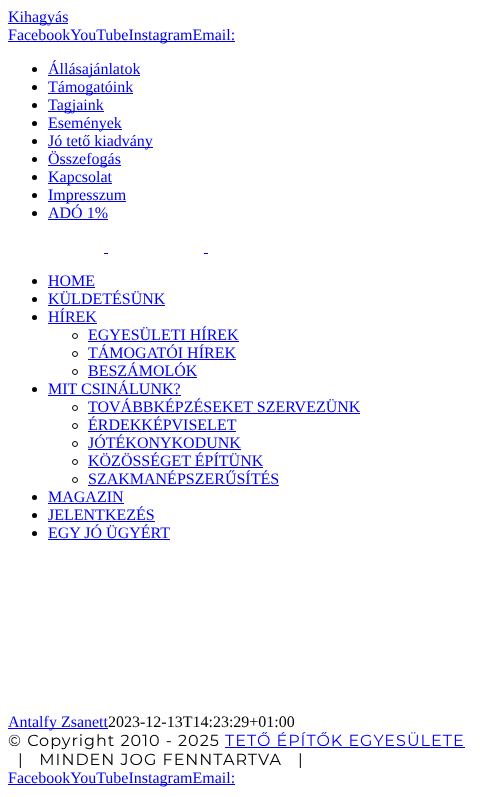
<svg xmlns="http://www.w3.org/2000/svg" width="480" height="797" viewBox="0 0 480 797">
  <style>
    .t1 { font: 16px Liberation Serif; fill: #00e; }
    .t2 { font: 16px Liberation Serif; fill: #000; }
    .t3 { font: 16px Montserrat; letter-spacing: 1px; fill: #000; }
    .t4 { font: 16px Montserrat; letter-spacing: 1px; fill: #00e; }
  </style>
  <rect width="100%" height="100%" fill="#fff"/>
  <rect x="8" y="23" width="60" height="1" fill="#00e"/>
  <text x="8" y="22" class="t1">Kihagyás</text>
  <rect x="8" y="41" width="184" height="1" fill="#00e"/>
  <text x="8" y="40" class="t1">FacebookYouTubeInstagramEmail:</text>
  <rect x="192" y="41" width="43" height="1" fill="#00e"/>
  <circle cx="34.5" cy="69.5" r="2.5" fill="#000"/>
  <rect x="48" y="75" width="92" height="1" fill="#00e"/>
  <text x="48" y="74" class="t1">Állásajánlatok</text>
  <circle cx="34.5" cy="87.5" r="2.5" fill="#000"/>
  <rect x="48" y="93" width="85" height="1" fill="#00e"/>
  <text x="48" y="92" class="t1">Támogatóink</text>
  <circle cx="34.5" cy="105.5" r="2.5" fill="#000"/>
  <rect x="48" y="111" width="56" height="1" fill="#00e"/>
  <text x="48" y="110" class="t1">Tagjaink</text>
  <circle cx="34.5" cy="123.5" r="2.5" fill="#000"/>
  <rect x="48" y="129" width="74" height="1" fill="#00e"/>
  <text x="48" y="128" class="t1">Események</text>
  <circle cx="34.5" cy="141.5" r="2.5" fill="#000"/>
  <rect x="48" y="147" width="105" height="1" fill="#00e"/>
  <text x="48" y="146" class="t1">Jó tető kiadvány</text>
  <circle cx="34.5" cy="159.5" r="2.5" fill="#000"/>
  <rect x="48" y="165" width="73" height="1" fill="#00e"/>
  <text x="48" y="164" class="t1">Összefogás</text>
  <circle cx="34.5" cy="177.5" r="2.5" fill="#000"/>
  <rect x="48" y="183" width="64" height="1" fill="#00e"/>
  <text x="48" y="182" class="t1">Kapcsolat</text>
  <circle cx="34.5" cy="195.5" r="2.5" fill="#000"/>
  <rect x="48" y="201" width="78" height="1" fill="#00e"/>
  <text x="48" y="200" class="t1">Impresszum</text>
  <circle cx="34.5" cy="213.5" r="2.5" fill="#000"/>
  <text x="48" y="218" class="t1">ADÓ 1%</text>
  <rect x="48" y="219" width="60" height="1" fill="#00e"/>
  <rect x="104" y="253" width="4" height="1" fill="#00e"/>
  <rect x="204" y="253" width="4" height="1" fill="#00e"/>
  <circle cx="34.5" cy="281.5" r="2.5" fill="#000"/>
  <text x="48" y="286" class="t1">HOME</text>
  <rect x="48" y="287" width="47" height="1" fill="#00e"/>
  <circle cx="34.5" cy="299.5" r="2.5" fill="#000"/>
  <text x="48" y="304" class="t1">KÜLDETÉSÜNK</text>
  <rect x="48" y="305" width="117" height="1" fill="#00e"/>
  <circle cx="34.5" cy="317.5" r="2.5" fill="#000"/>
  <text x="48" y="322" class="t1">HÍREK</text>
  <rect x="48" y="323" width="49" height="1" fill="#00e"/>
  <circle cx="75" cy="336" r="2.5" fill="none" stroke="#000"/>
  <text x="88" y="340" class="t1">EGYESÜLETI HÍREK</text>
  <rect x="88" y="341" width="151" height="1" fill="#00e"/>
  <circle cx="75" cy="354" r="2.5" fill="none" stroke="#000"/>
  <text x="88" y="358" class="t1">TÁMOGATÓI HÍREK</text>
  <rect x="88" y="359" width="148" height="1" fill="#00e"/>
  <circle cx="75" cy="372" r="2.5" fill="none" stroke="#000"/>
  <text x="88" y="376" class="t1">BESZÁMOLÓK</text>
  <rect x="88" y="377" width="109" height="1" fill="#00e"/>
  <circle cx="34.5" cy="389.5" r="2.5" fill="#000"/>
  <text x="48" y="394" class="t1">MIT CSINÁLUNK?</text>
  <rect x="48" y="395" width="133" height="1" fill="#00e"/>
  <circle cx="75" cy="408" r="2.5" fill="none" stroke="#000"/>
  <text x="88" y="412" class="t1">TOVÁBBKÉPZÉSEKET SZERVEZÜNK</text>
  <rect x="88" y="413" width="272" height="1" fill="#00e"/>
  <circle cx="75" cy="426" r="2.5" fill="none" stroke="#000"/>
  <text x="88" y="430" class="t1">ÉRDEKKÉPVISELET</text>
  <rect x="88" y="431" width="148" height="1" fill="#00e"/>
  <circle cx="75" cy="444" r="2.5" fill="none" stroke="#000"/>
  <text x="88" y="448" class="t1">JÓTÉKONYKODUNK</text>
  <rect x="88" y="449" width="153" height="1" fill="#00e"/>
  <circle cx="75" cy="462" r="2.5" fill="none" stroke="#000"/>
  <text x="88" y="466" class="t1">KÖZÖSSÉGET ÉPÍTÜNK</text>
  <rect x="88" y="467" width="175" height="1" fill="#00e"/>
  <circle cx="75" cy="480" r="2.5" fill="none" stroke="#000"/>
  <text x="88" y="484" class="t1">SZAKMANÉPSZERŰSÍTÉS</text>
  <rect x="88" y="485" width="191" height="1" fill="#00e"/>
  <circle cx="34.5" cy="497.5" r="2.5" fill="#000"/>
  <text x="48" y="502" class="t1">MAGAZIN</text>
  <rect x="48" y="503" width="76" height="1" fill="#00e"/>
  <circle cx="34.5" cy="515.5" r="2.5" fill="#000"/>
  <text x="48" y="520" class="t1">JELENTKEZÉS</text>
  <rect x="48" y="521" width="107" height="1" fill="#00e"/>
  <circle cx="34.5" cy="533.5" r="2.5" fill="#000"/>
  <text x="48" y="538" class="t1">EGY JÓ ÜGYÉRT</text>
  <rect x="48" y="539" width="122" height="1" fill="#00e"/>
  <rect x="8" y="728" width="100" height="1" fill="#00e"/>
  <text x="8" y="727" class="t1">Antalfy Zsanett</text>
  <text x="108" y="727" class="t2">2023-12-13T14:23:29+01:00</text>
  <text x="8" y="746" class="t3">© Copyright 2010 - 2025</text>
  <rect x="225" y="747" width="240" height="1" fill="#00e"/>
  <text x="225" y="746" class="t4">TETŐ ÉPÍTŐK EGYESÜLETE</text>
  <text x="18" y="765" class="t3" xml:space="preserve">|   MINDEN JOG FENNTARTVA</text>
  <text x="298" y="765" class="t3">|</text>
  <rect x="8" y="784" width="184" height="1" fill="#00e"/>
  <text x="8" y="783" class="t1">FacebookYouTubeInstagramEmail:</text>
  <rect x="192" y="784" width="43" height="1" fill="#00e"/>
</svg>
